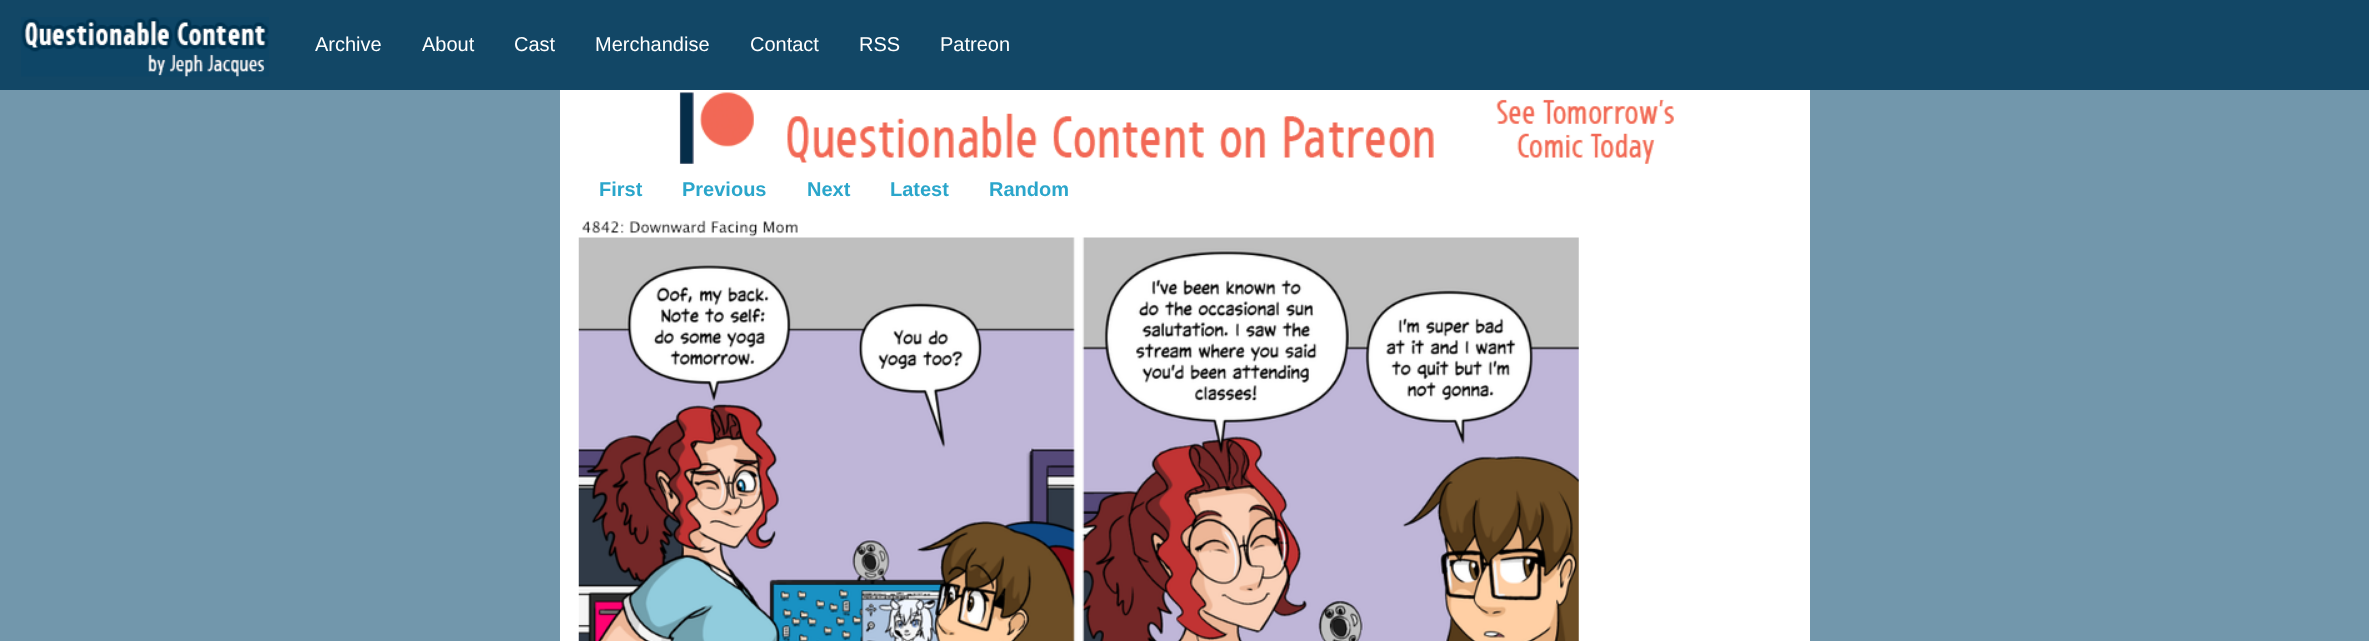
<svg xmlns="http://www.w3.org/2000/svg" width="2369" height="641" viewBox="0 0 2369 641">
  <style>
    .t1 { font: 20px Liberation Sans; fill: #fff; }
    .t2 { font: bold 20px Liberation Sans; fill: #2ba6cb; }
  </style>
  <rect width="100%" height="100%" fill="#7297ac"/>
  <rect x="0" y="0" width="2369" height="90" fill="#124766"/>
  <image x="21" y="17" width="248" height="60" href="images/1.png"/>
  <text x="315" y="51" class="t1">Archive</text>
  <text x="422" y="51" class="t1">About</text>
  <text x="514" y="51" class="t1">Cast</text>
  <text x="595" y="51" class="t1">Merchandise</text>
  <text x="750" y="51" class="t1">Contact</text>
  <text x="859" y="51" class="t1">RSS</text>
  <text x="940" y="51" class="t1">Patreon</text>
  <rect x="560" y="90" width="1250" height="551" fill="#fff"/>
  <image x="679" y="92" width="995" height="72" href="images/2.png"/>
  <text x="599" y="196" class="t2">First</text>
  <text x="682" y="196" class="t2">Previous</text>
  <text x="807" y="196" class="t2">Next</text>
  <text x="890" y="196" class="t2">Latest</text>
  <text x="989" y="196" class="t2">Random</text>
  <image x="578" y="220" width="1001" height="421" href="images/3.png"/>
</svg>
